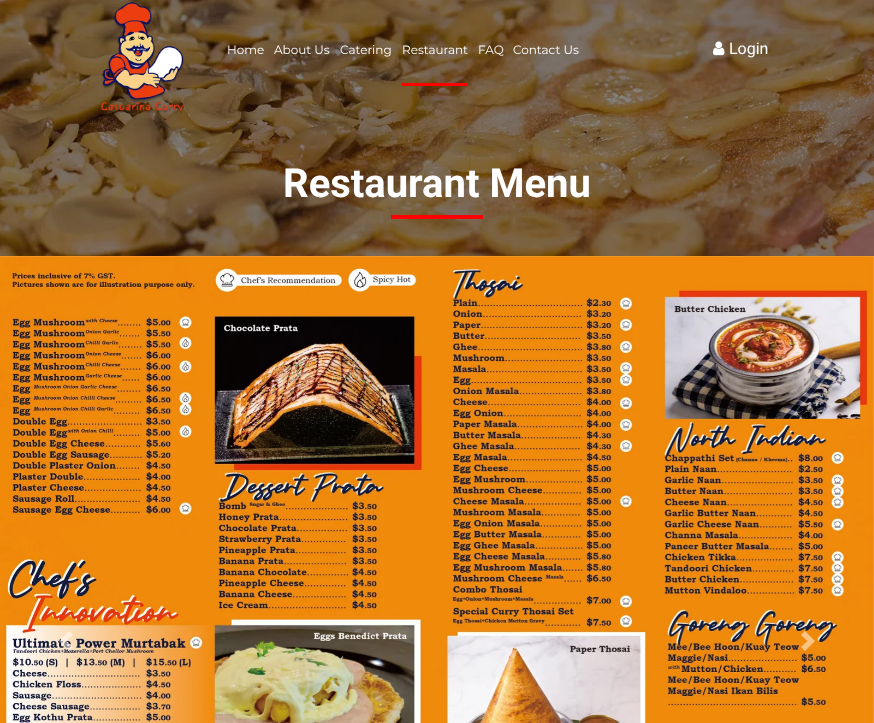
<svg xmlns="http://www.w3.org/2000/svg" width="874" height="723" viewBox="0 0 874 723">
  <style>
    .t1 { font: 12px Montserrat; fill: #fff; }
    .t2 { font: 16px Roboto; fill: #fff; }
    .t3 { font: bold 40px Roboto; fill: #fff; }
  </style>
  <rect width="100%" height="100%" fill="#fff"/>
  <image x="0" y="0" width="874" height="256" href="images/3.png"/>
  <image x="101" y="2" width="83" height="112" href="images/1.png"/>
  <text x="227" y="54" class="t1">Home</text>
  <text x="274" y="54" class="t1">About Us</text>
  <text x="340" y="54" class="t1">Catering</text>
  <text x="402" y="54" class="t1">Restaurant</text>
  <rect x="402" y="83" width="66" height="3" fill="#fe0000"/>
  <text x="478" y="54" class="t1">FAQ</text>
  <text x="513" y="54" class="t1">Contact Us</text>
  <image x="713" y="41" width="12" height="15" href="images/2.png"/>
  <text x="729" y="54" class="t2">Login</text>
  <text x="283" y="197" class="t3">Restaurant Menu</text>
  <rect x="391" y="215" width="92" height="4" fill="#fe0000"/>
  <image x="0" y="256" width="874" height="467" href="images/4.png"/>
  <path d="M69 631L59 641L69 651L73 647L66.5 641L73 635Z" fill="#ffffff80"/>
  <path d="M805 631L801 635L807.5 641L801 647L805 651L815 641Z" fill="#ffffff80"/>
</svg>
